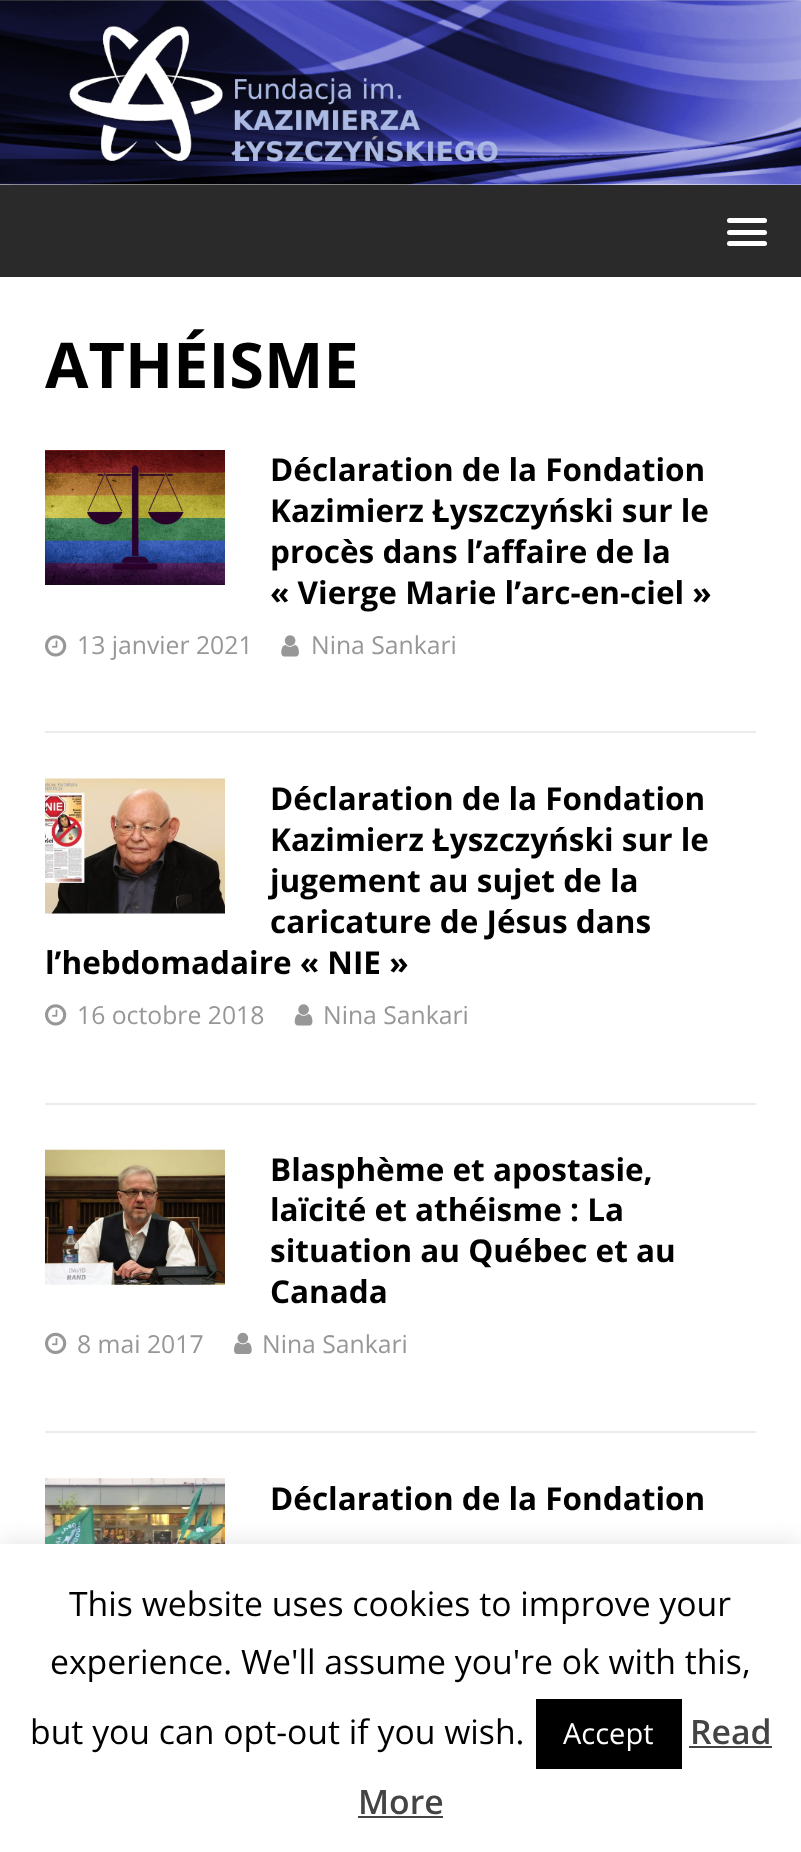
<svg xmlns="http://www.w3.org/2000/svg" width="801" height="1852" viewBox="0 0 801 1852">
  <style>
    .t1 { font: bold 63px Open Sans; fill: #000; }
    .t2 { font: bold 31.5px Open Sans; fill: #000; }
    .t3 { font: 24.75px Open Sans; fill: #979797; }
    .t4 { font: 33.75px Open Sans; fill: #000; }
    .t5 { font: 29px Open Sans; fill: #fff; }
    .t6 { font: 600 33.75px Open Sans; fill: #444; }
  </style>
  <rect width="100%" height="100%" fill="#fff"/>
  <image x="0" y="0" width="801" height="185" href="images/1.png"/>
  <rect x="0" y="185" width="801" height="92" fill="#2a2a2a"/>
  <rect x="727" y="218" width="40" height="5" rx="2.5" fill="#fff"/>
  <rect x="727" y="230" width="40" height="5" rx="2.5" fill="#fff"/>
  <rect x="727" y="241" width="40" height="5" rx="2.5" fill="#fff"/>
  <text x="45" y="388" class="t1">ATHÉISME</text>
  <rect x="45" y="731" width="711" height="2" fill="#ebebeb"/>
  <image x="45" y="450" width="180" height="135" href="images/2.png"/>
  <text x="270" y="481" class="t2">Déclaration de la Fondation</text>
  <text x="270" y="522" class="t2">Kazimierz Łyszczyński sur le</text>
  <text x="270" y="563" class="t2">procès dans l’affaire de la</text>
  <text x="270" y="604" class="t2">« Vierge Marie l’arc-en-ciel »</text>
  <image x="45" y="635" width="22" height="22" href="images/3.png"/>
  <text x="77" y="654" class="t3">13 janvier 2021</text>
  <image x="281" y="635" width="18" height="22" href="images/4.png"/>
  <text x="311" y="654" class="t3">Nina Sankari</text>
  <rect x="45" y="1103" width="711" height="2" fill="#ebebeb"/>
  <image x="45" y="778" width="180" height="136" href="images/5.png"/>
  <text x="270" y="810" class="t2">Déclaration de la Fondation</text>
  <text x="270" y="851" class="t2">Kazimierz Łyszczyński sur le</text>
  <text x="270" y="892" class="t2">jugement au sujet de la</text>
  <text x="270" y="933" class="t2">caricature de Jésus dans</text>
  <text x="45" y="974" class="t2">l’hebdomadaire « NIE »</text>
  <image x="45" y="1004" width="22" height="22" href="images/3.png"/>
  <text x="77" y="1024" class="t3">16 octobre 2018</text>
  <image x="294" y="1004" width="19" height="22" href="images/6.png"/>
  <text x="323" y="1024" class="t3">Nina Sankari</text>
  <rect x="45" y="1431" width="711" height="2" fill="#ebebeb"/>
  <image x="45" y="1149" width="180" height="136" href="images/7.png"/>
  <text x="270" y="1181" class="t2">Blasphème et apostasie,</text>
  <text x="270" y="1221" class="t2">laïcité et athéisme : La</text>
  <text x="270" y="1262" class="t2">situation au Québec et au</text>
  <text x="270" y="1303" class="t2">Canada</text>
  <image x="45" y="1332" width="22" height="22" href="images/8.png"/>
  <text x="77" y="1353" class="t3">8 mai 2017</text>
  <image x="234" y="1332" width="18" height="22" href="images/9.png"/>
  <text x="262" y="1353" class="t3">Nina Sankari</text>
  <image x="45" y="1478" width="180" height="66" href="images/10.png"/>
  <text x="270" y="1510" class="t2">Déclaration de la Fondation</text>
  <rect x="0" y="1541" width="801" height="311" fill="#acabab4d" filter="blur(11px)"/>
  <rect x="0" y="1544" width="801" height="308" fill="#fff"/>
  <text x="69" y="1616" class="t4">This website uses cookies to improve your</text>
  <text x="50" y="1674" class="t4">experience. We'll assume you're ok with this,</text>
  <text x="30" y="1744" class="t4">but you can opt-out if you wish.</text>
  <rect x="536" y="1699" width="146" height="70" fill="#000"/>
  <text x="563" y="1744" class="t5">Accept</text>
  <text x="690" y="1744" class="t6">Read</text>
  <rect x="689" y="1746" width="83" height="2" fill="#444"/>
  <text x="358" y="1814" class="t6">More</text>
  <rect x="358" y="1816" width="85" height="2" fill="#444"/>
</svg>
